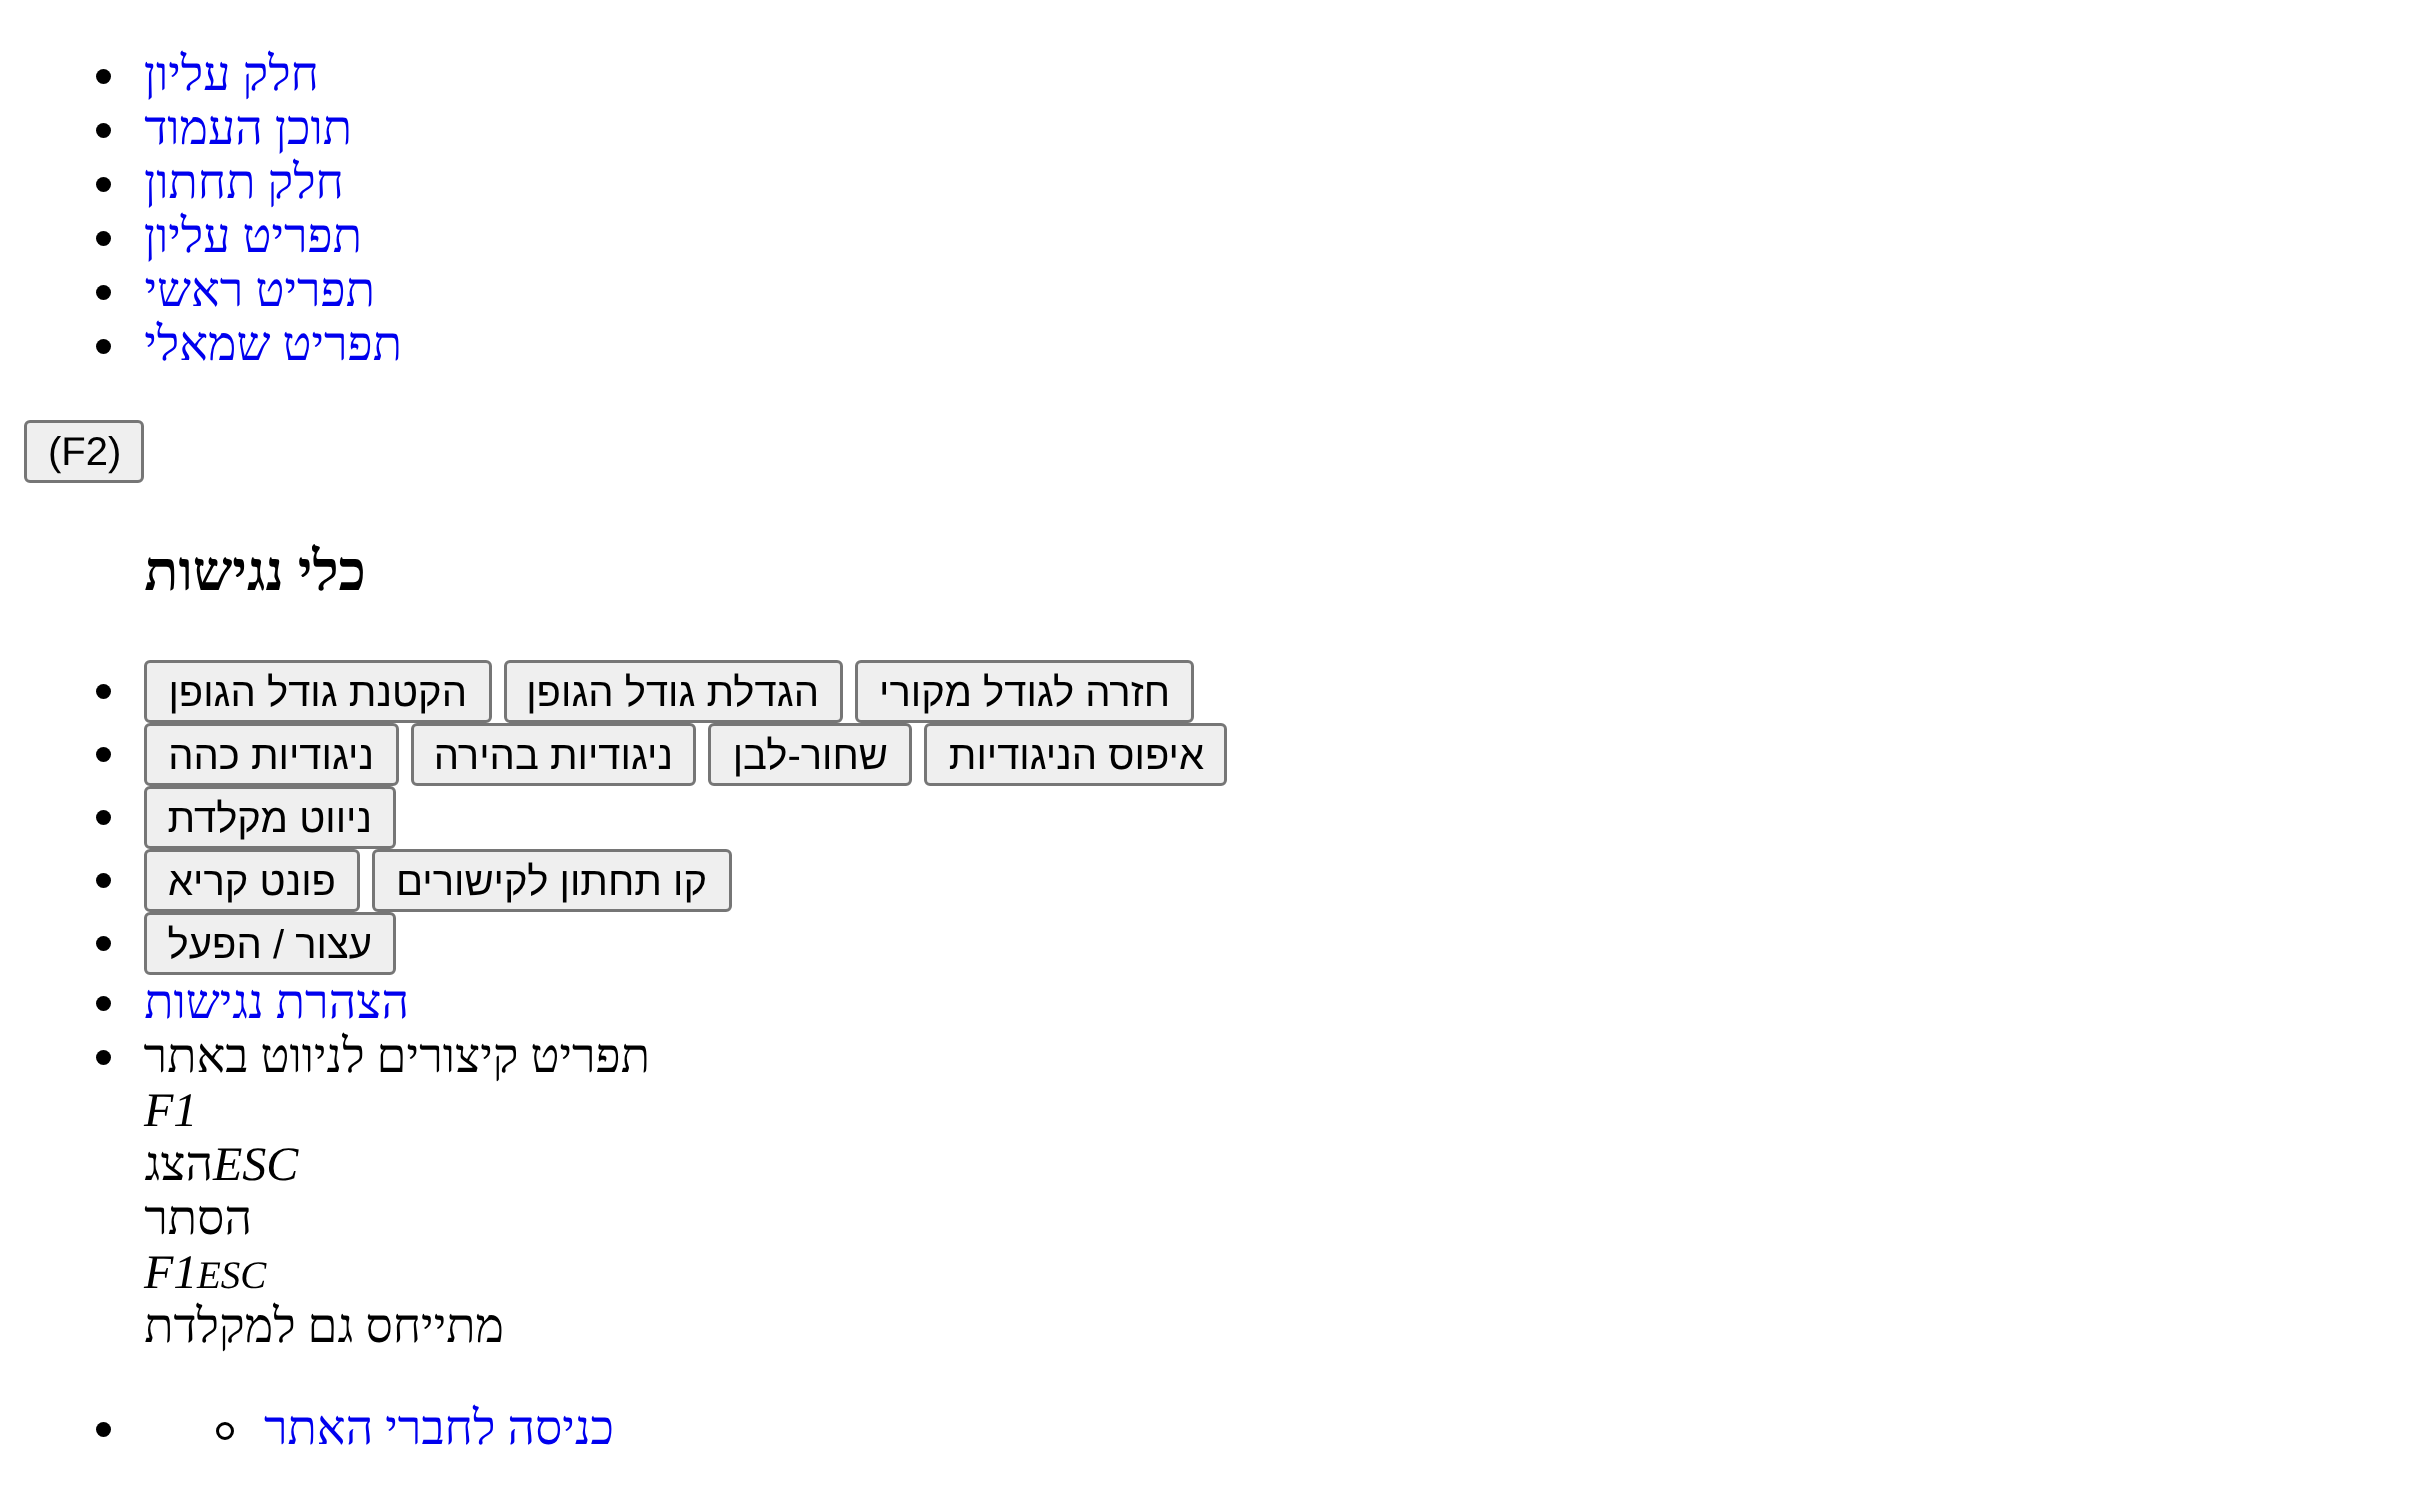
<svg xmlns="http://www.w3.org/2000/svg" width="2425" height="1508" viewBox="0 0 2425 1508">
  <style>
    .t1 { font: 48px Liberation Serif; direction: rtl; fill: #00e; }
    .t2 { font: 40px Liberation Sans; fill: #000; }
    .t3 { font: bold 56px Liberation Serif; direction: rtl; fill: #000; }
    .t4 { font: 40px Liberation Sans; direction: rtl; fill: #000; }
    .t5 { font: 48px Liberation Serif; direction: rtl; fill: #000; }
    .t6 { font: italic 48px Liberation Serif; fill: #000; }
    .t7 { font: italic 39px Liberation Serif; fill: #000; }
  </style>
  <rect width="100%" height="100%" fill="#fff"/>
  <text x="319" y="90" class="t1">חלק עליון</text>
  <circle cx="103.5" cy="76.5" r="7.5" fill="#000"/>
  <text x="352" y="144" class="t1">תוכן העמוד</text>
  <circle cx="103.5" cy="130.5" r="7.5" fill="#000"/>
  <text x="344" y="198" class="t1">חלק תחתון</text>
  <circle cx="103.5" cy="184.5" r="7.5" fill="#000"/>
  <text x="362" y="252" class="t1">תפריט עליון</text>
  <circle cx="103.5" cy="238.5" r="7.5" fill="#000"/>
  <text x="375" y="306" class="t1">תפריט ראשי</text>
  <circle cx="103.5" cy="292.5" r="7.5" fill="#000"/>
  <text x="402" y="360" class="t1">תפריט שמאלי</text>
  <circle cx="103.5" cy="346.5" r="7.5" fill="#000"/>
  <rect x="25.5" y="421.5" width="117" height="60" rx="4.5" fill="#efefef" stroke="#767676" stroke-width="3"/>
  <text x="48" y="465" class="t2">(F2)</text>
  <text x="366" y="590" class="t3">כלי נגישות</text>
  <rect x="856.5" y="661.5" width="336" height="60" rx="4.5" fill="#efefef" stroke="#767676" stroke-width="3"/>
  <text x="1170" y="706" class="t4">חזרה לגודל מקורי</text>
  <rect x="505.5" y="661.5" width="336" height="60" rx="4.5" fill="#efefef" stroke="#767676" stroke-width="3"/>
  <text x="819" y="706" class="t4">הגדלת גודל הגופן</text>
  <rect x="145.5" y="661.5" width="345" height="60" rx="4.5" fill="#efefef" stroke="#767676" stroke-width="3"/>
  <text x="467" y="706" class="t4">הקטנת גודל הגופן</text>
  <circle cx="103.5" cy="691.5" r="7.5" fill="#000"/>
  <rect x="925.5" y="724.5" width="300" height="60" rx="4.5" fill="#efefef" stroke="#767676" stroke-width="3"/>
  <text x="1204" y="769" class="t4">איפוס הניגודיות</text>
  <rect x="709.5" y="724.5" width="201" height="60" rx="4.5" fill="#efefef" stroke="#767676" stroke-width="3"/>
  <text x="888" y="769" class="t4">שחור-לבן</text>
  <rect x="412.5" y="724.5" width="282" height="60" rx="4.5" fill="#efefef" stroke="#767676" stroke-width="3"/>
  <text x="673" y="769" class="t4">ניגודיות בהירה</text>
  <rect x="145.5" y="724.5" width="252" height="60" rx="4.5" fill="#efefef" stroke="#767676" stroke-width="3"/>
  <text x="374" y="769" class="t4">ניגודיות כהה</text>
  <circle cx="103.5" cy="754.5" r="7.5" fill="#000"/>
  <rect x="145.5" y="787.5" width="249" height="60" rx="4.5" fill="#efefef" stroke="#767676" stroke-width="3"/>
  <text x="372" y="832" class="t4">ניווט מקלדת</text>
  <circle cx="103.5" cy="817.5" r="7.5" fill="#000"/>
  <rect x="373.5" y="850.5" width="357" height="60" rx="4.5" fill="#efefef" stroke="#767676" stroke-width="3"/>
  <text x="707" y="895" class="t4">קו תחתון לקישורים</text>
  <rect x="145.5" y="850.5" width="213" height="60" rx="4.5" fill="#efefef" stroke="#767676" stroke-width="3"/>
  <text x="336" y="895" class="t4">פונט קריא</text>
  <circle cx="103.5" cy="880.5" r="7.5" fill="#000"/>
  <rect x="145.5" y="913.5" width="249" height="60" rx="4.5" fill="#efefef" stroke="#767676" stroke-width="3"/>
  <text x="372" y="958" class="t4">עצור / הפעל</text>
  <circle cx="103.5" cy="943.5" r="7.5" fill="#000"/>
  <text x="409" y="1018" class="t1">הצהרת נגישות</text>
  <circle cx="103.5" cy="1003.5" r="7.5" fill="#000"/>
  <text x="650" y="1072" class="t5">תפריט קיצורים לניווט באתר</text>
  <circle cx="103.5" cy="1057.5" r="7.5" fill="#000"/>
  <text x="144" y="1126" class="t6">F1</text>
  <text x="213" y="1180" class="t6">ESC</text>
  <text x="213" y="1180" class="t5">הצג</text>
  <text x="252" y="1234" class="t5">הסתר</text>
  <text x="197" y="1288" class="t7">ESC</text>
  <text x="144" y="1288" class="t6">F1</text>
  <text x="504" y="1342" class="t5">מתייחס גם למקלדת</text>
  <text x="614" y="1444" class="t1">כניסה לחברי האתר</text>
  <circle cx="225" cy="1431" r="7.5" fill="none" stroke="#000" stroke-width="3"/>
  <circle cx="103.5" cy="1429.5" r="7.5" fill="#000"/>
</svg>
